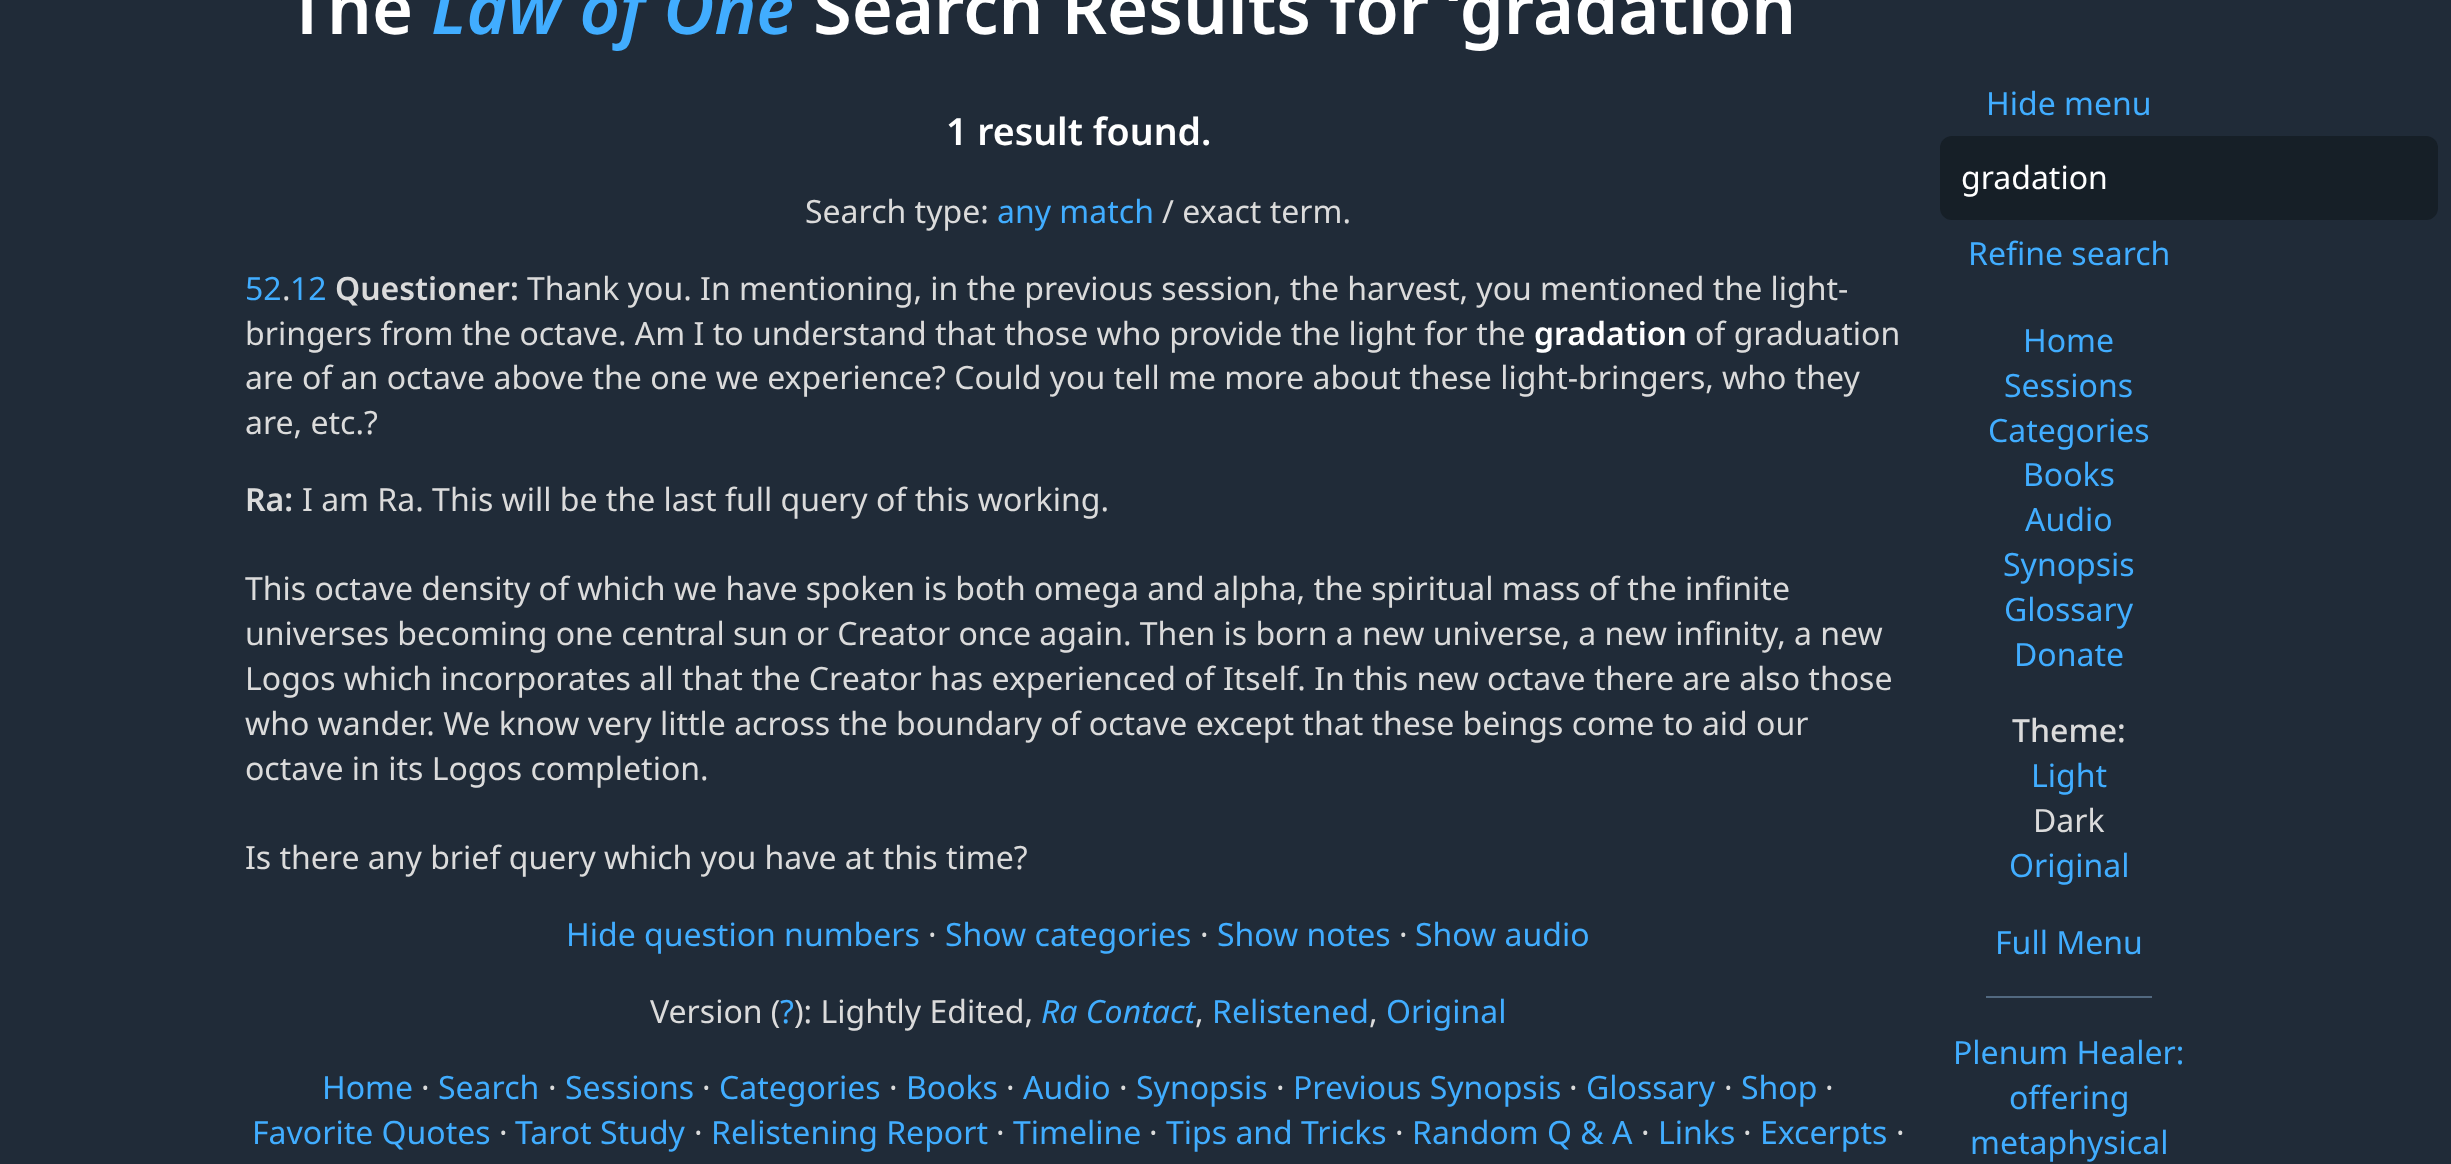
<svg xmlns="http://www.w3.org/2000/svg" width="2451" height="1164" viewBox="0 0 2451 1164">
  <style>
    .t1 { font: 600 70.4px Noto Sans; fill: #fff; }
    .t2 { font: italic 600 70.4px Noto Sans; fill: #41adff; }
    .t3 { font: 600 37.5px Noto Sans; fill: #fff; }
    .t4 { font: 32px Noto Sans; fill: #41adff; }
    .t5 { font: 32px Noto Sans; fill: #fff; }
    .t6 { font: 500 32px Noto Sans; fill: #dbdbdb; }
    .t7 { font: 32px Noto Sans; fill: #dbdbdb; }
    .t8 { font: 600 32px Noto Sans; fill: #dbdbdb; }
    .t9 { font: 600 32px Noto Sans; fill: #fff; }
    .t10 { font: italic 32px Noto Sans; fill: #41adff; }
  </style>
  <rect width="100%" height="100%" fill="#202b38"/>
  <text x="287" y="34" class="t1">The</text>
  <text x="431" y="34" class="t2">Law of One</text>
  <text x="813" y="34" class="t1">Search Results for ‘gradation</text>
  <text x="946" y="145" class="t3">1 result found.</text>
  <text x="1986" y="115" class="t4">Hide menu</text>
  <rect x="1940" y="136" width="498" height="84" rx="12" fill="#161f27"/>
  <text x="1961" y="189" class="t5">gradation</text>
  <text x="1968" y="265" class="t4">Refine search</text>
  <text x="2023" y="352" class="t4">Home</text>
  <text x="2004" y="397" class="t4">Sessions</text>
  <text x="1988" y="442" class="t4">Categories</text>
  <text x="2023" y="486" class="t4">Books</text>
  <text x="2025" y="531" class="t4">Audio</text>
  <text x="2003" y="576" class="t4">Synopsis</text>
  <text x="2004" y="621" class="t4">Glossary</text>
  <text x="2014" y="666" class="t4">Donate</text>
  <text x="2012" y="742" class="t6">Theme:</text>
  <text x="2031" y="787" class="t4">Light</text>
  <text x="2033" y="832" class="t7">Dark</text>
  <text x="2009" y="877" class="t4">Original</text>
  <text x="1995" y="954" class="t4">Full Menu</text>
  <rect x="1986" y="996" width="166" height="2" fill="#526980"/>
  <text x="1953" y="1064" class="t4">Plenum Healer:</text>
  <text x="2009" y="1109" class="t4">offering</text>
  <text x="1970" y="1154" class="t4">metaphysical</text>
  <text x="805" y="223" class="t7">Search type:</text>
  <text x="997" y="223" class="t4">any match</text>
  <text x="1162" y="223" class="t7">/ exact term.</text>
  <text x="245" y="300" class="t4">52 12</text>
  <text x="335" y="300" class="t8">Questioner:</text>
  <text x="527" y="300" class="t7">Thank you. In mentioning, in the previous session, the harvest, you mentioned the light-</text>
  <text x="282" y="300" class="t7">.</text>
  <text x="245" y="345" class="t7">bringers from the octave. Am I to understand that those who provide the light for the</text>
  <text x="1534" y="345" class="t9">gradation</text>
  <text x="1695" y="345" class="t7">of graduation</text>
  <text x="245" y="389" class="t7">are of an octave above the one we experience? Could you tell me more about these light-bringers, who they</text>
  <text x="245" y="434" class="t7">are, etc.?</text>
  <text x="245" y="511" class="t8">Ra:</text>
  <text x="302" y="511" class="t7">I am Ra. This will be the last full query of this working.</text>
  <text x="245" y="600" class="t7">This octave density of which we have spoken is both omega and alpha, the spiritual mass of the infinite</text>
  <text x="245" y="645" class="t7">universes becoming one central sun or Creator once again. Then is born a new universe, a new infinity, a new</text>
  <text x="245" y="690" class="t7">Logos which incorporates all that the Creator has experienced of Itself. In this new octave there are also those</text>
  <text x="245" y="735" class="t7">who wander. We know very little across the boundary of octave except that these beings come to aid our</text>
  <text x="245" y="780" class="t7">octave in its Logos completion.</text>
  <text x="245" y="869" class="t7">Is there any brief query which you have at this time?</text>
  <text x="566" y="946" class="t4">Hide question numbers</text>
  <text x="928" y="946" class="t7">·</text>
  <text x="945" y="946" class="t4">Show categories</text>
  <text x="1200" y="946" class="t7">·</text>
  <text x="1217" y="946" class="t4">Show notes</text>
  <text x="1399" y="946" class="t7">·</text>
  <text x="1415" y="946" class="t4">Show audio</text>
  <text x="650" y="1023" class="t7">Version (</text>
  <text x="780" y="1023" class="t4">?</text>
  <text x="794" y="1023" class="t7">): Lightly Edited,</text>
  <text x="1041" y="1023" class="t10">Ra Contact</text>
  <text x="1195" y="1023" class="t7">,</text>
  <text x="1212" y="1023" class="t4">Relistened</text>
  <text x="1369" y="1023" class="t7">,</text>
  <text x="1386" y="1023" class="t4">Original</text>
  <text x="322" y="1099" class="t4">Home</text>
  <text x="421" y="1099" class="t7">·</text>
  <text x="438" y="1099" class="t4">Search</text>
  <text x="548" y="1099" class="t7">·</text>
  <text x="565" y="1099" class="t4">Sessions</text>
  <text x="702" y="1099" class="t7">·</text>
  <text x="719" y="1099" class="t4">Categories</text>
  <text x="889" y="1099" class="t7">·</text>
  <text x="906" y="1099" class="t4">Books</text>
  <text x="1006" y="1099" class="t7">·</text>
  <text x="1023" y="1099" class="t4">Audio</text>
  <text x="1119" y="1099" class="t7">·</text>
  <text x="1136" y="1099" class="t4">Synopsis</text>
  <text x="1276" y="1099" class="t7">·</text>
  <text x="1293" y="1099" class="t4">Previous Synopsis</text>
  <text x="1569" y="1099" class="t7">·</text>
  <text x="1586" y="1099" class="t4">Glossary</text>
  <text x="1724" y="1099" class="t7">·</text>
  <text x="1741" y="1099" class="t4">Shop</text>
  <text x="1825" y="1099" class="t7">·</text>
  <text x="252" y="1144" class="t4">Favorite Quotes</text>
  <text x="499" y="1144" class="t7">·</text>
  <text x="515" y="1144" class="t4">Tarot Study</text>
  <text x="694" y="1144" class="t7">·</text>
  <text x="711" y="1144" class="t4">Relistening Report</text>
  <text x="996" y="1144" class="t7">·</text>
  <text x="1013" y="1144" class="t4">Timeline</text>
  <text x="1149" y="1144" class="t7">·</text>
  <text x="1166" y="1144" class="t4">Tips and Tricks</text>
  <text x="1395" y="1144" class="t7">·</text>
  <text x="1412" y="1144" class="t4">Random Q &amp; A</text>
  <text x="1641" y="1144" class="t7">·</text>
  <text x="1658" y="1144" class="t4">Links</text>
  <text x="1743" y="1144" class="t7">·</text>
  <text x="1760" y="1144" class="t4">Excerpts</text>
  <text x="1896" y="1144" class="t7">·</text>
</svg>
